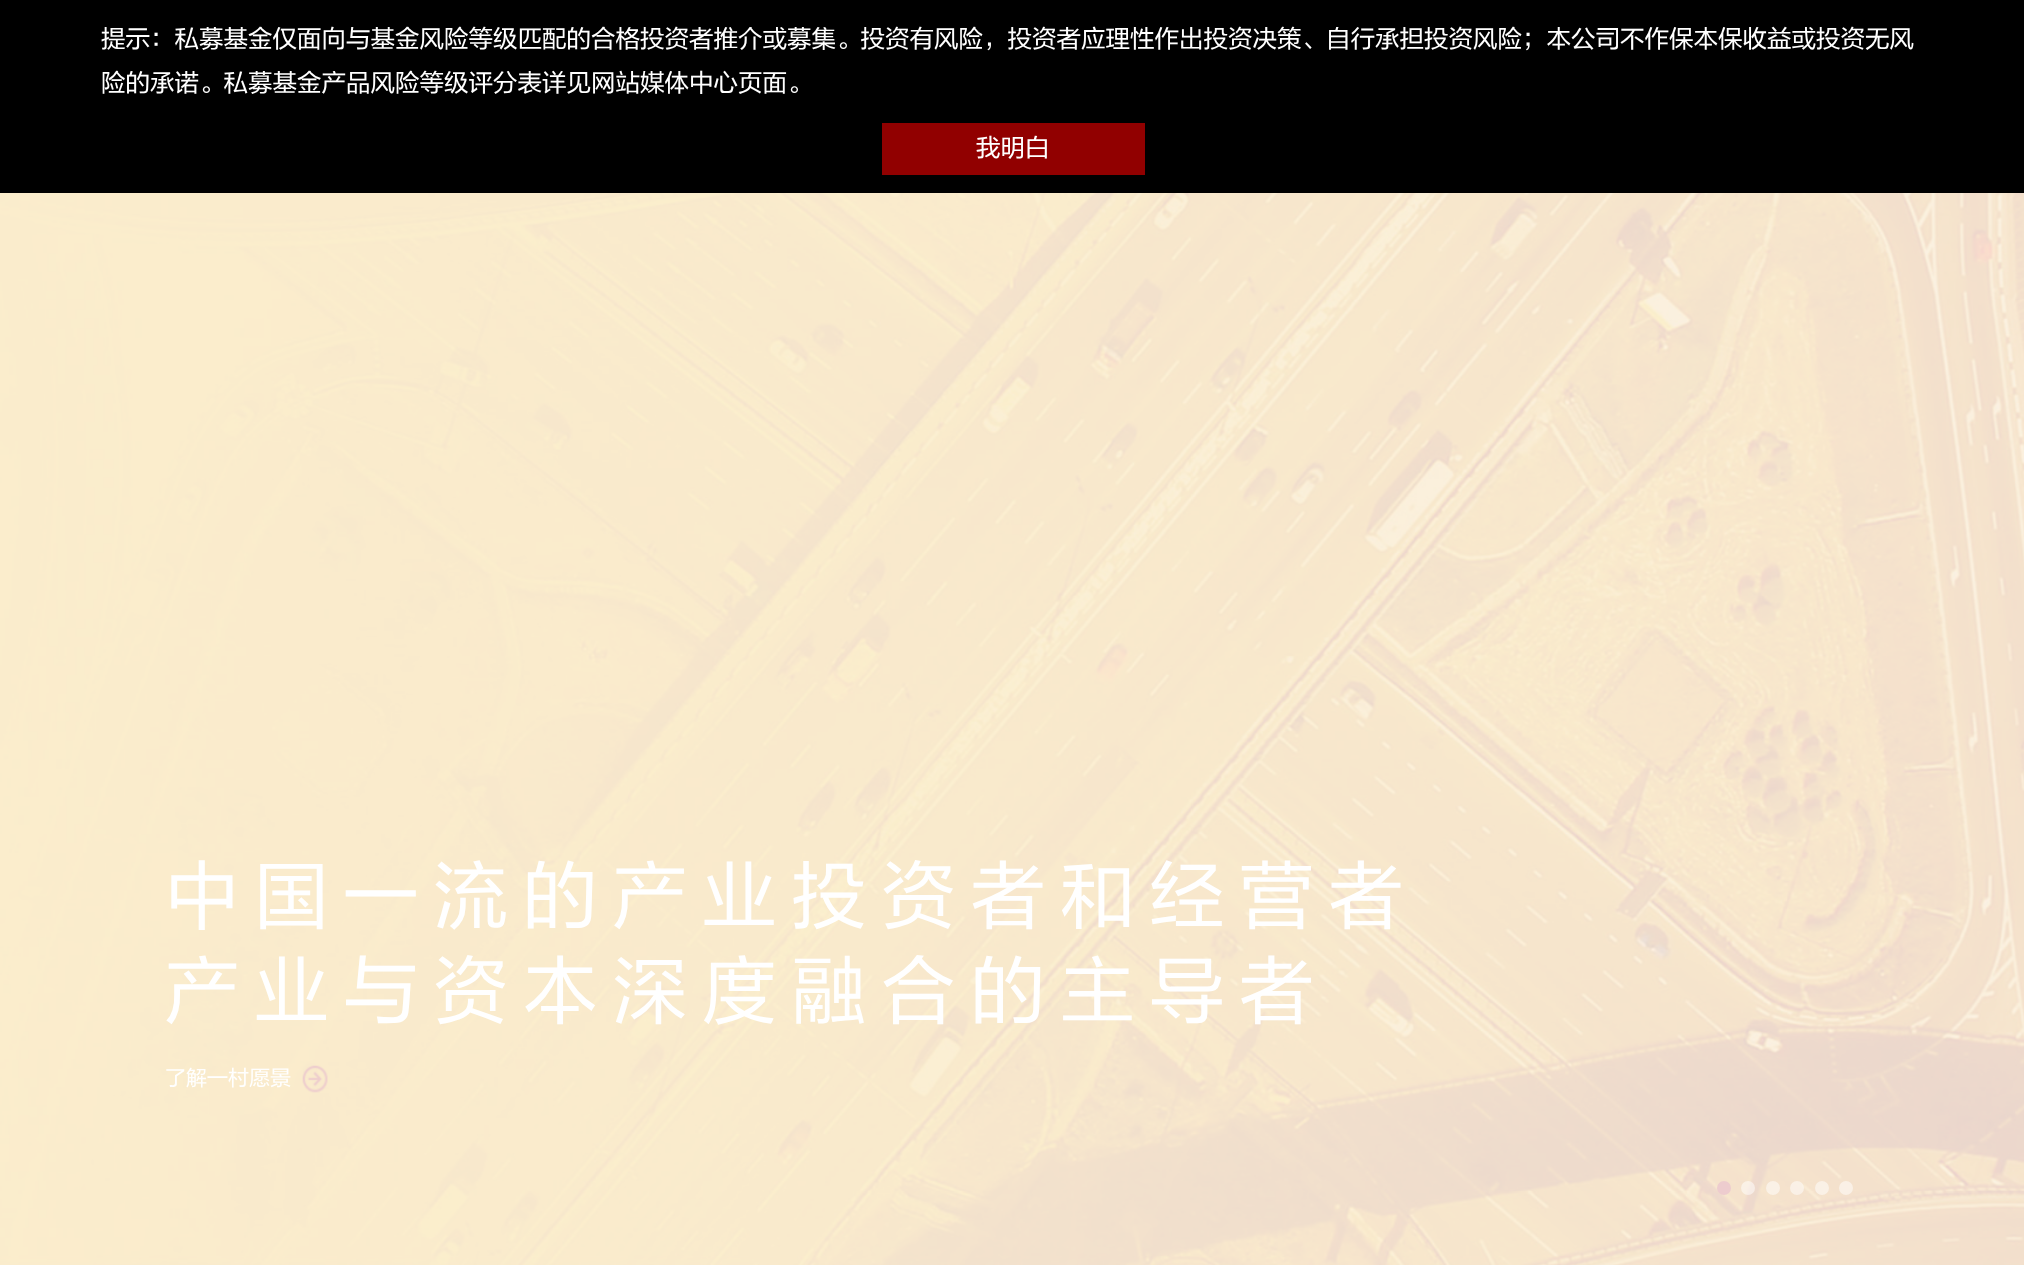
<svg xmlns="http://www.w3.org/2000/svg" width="2024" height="1265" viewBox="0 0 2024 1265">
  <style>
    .t1 { font: 24.5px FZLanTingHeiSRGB; fill: #fff; }
    .t2 { font: 73.8px FZLanTingHeiSRGB; letter-spacing: 15.75px; fill: #fff; }
    .t3 { font: 21px FZLanTingHeiSRGB; fill: #fff; }
  </style>
  <rect width="100%" height="100%" fill="#fff"/>
  <rect x="0" y="0" width="2024" height="193" fill="#000"/>
  <text x="101" y="47" class="t1">提示：私募基金仅面向与基金风险等级匹配的合格投资者推介或募集。投资有风险，投资者应理性作出投资决策、自行承担投资风险；本公司不作保本保收益或投资无风</text>
  <text x="101" y="91" class="t1">险的承诺。私募基金产品风险等级评分表详见网站媒体中心页面。</text>
  <rect x="882" y="123" width="263" height="52" fill="#910000"/>
  <text x="976" y="156" class="t1">我明白</text>
  <image x="0" y="193" width="2024" height="1072" href="images/1.png"/>
  <text x="165" y="921" class="t2">中国一流的产业投资者和经营者</text>
  <text x="165" y="1016" class="t2">产业与资本深度融合的主导者</text>
  <text x="165" y="1085" class="t3">了解一村愿景</text>
  <image x="302" y="1065" width="26" height="28" href="images/2.png"/>
  <circle cx="1724" cy="1188" r="7" fill="#edccce"/>
  <circle cx="1748" cy="1188" r="7" fill="#ffffff80"/>
  <circle cx="1773" cy="1188" r="7" fill="#ffffff80"/>
  <circle cx="1797" cy="1188" r="7" fill="#ffffff80"/>
  <circle cx="1822" cy="1188" r="7" fill="#ffffff80"/>
  <circle cx="1846" cy="1188" r="7" fill="#ffffff80"/>
</svg>
